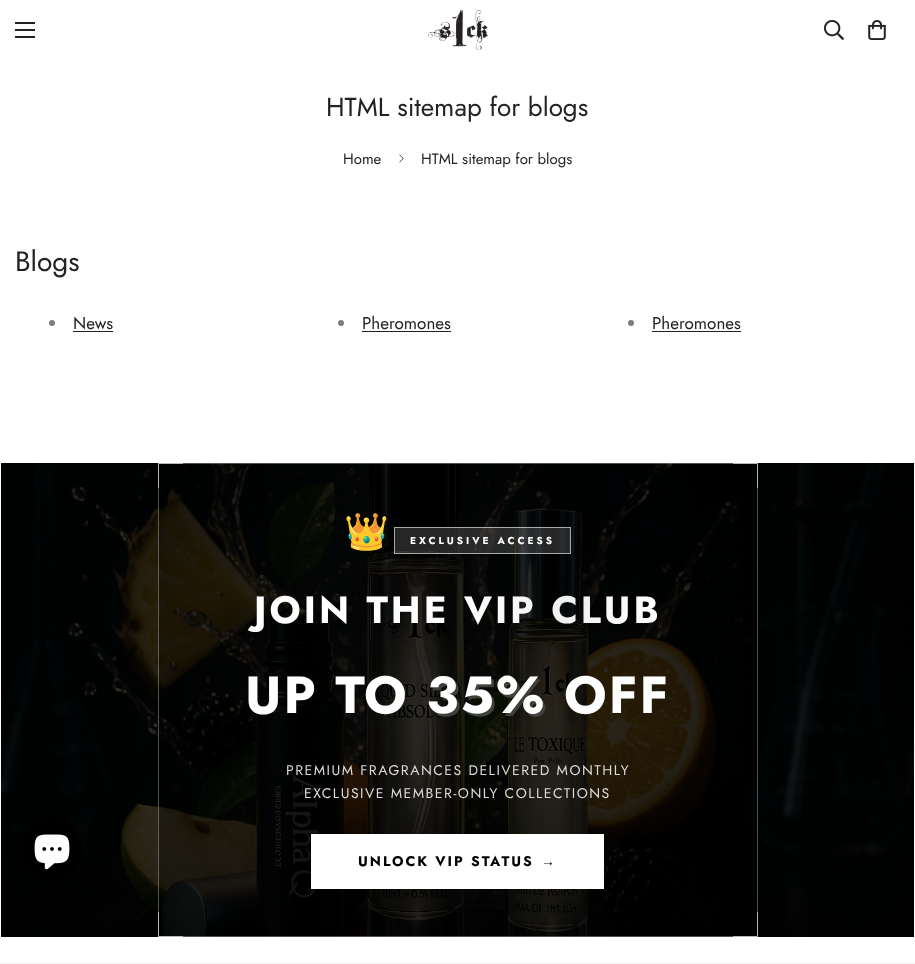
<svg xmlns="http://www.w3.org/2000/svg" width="915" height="964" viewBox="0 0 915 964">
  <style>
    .t1 { font: 26px Jost; fill: #222; }
    .t2 { font: 15px Jost; fill: #222; }
    .t3 { font: 28px Jost; fill: #222; }
    .t4 { font: 17px Jost; fill: #222; }
    .t5 { font: 36px Noto Color Emoji; fill: #444; }
    .t6 { font: bold 10px Jost; letter-spacing: 3px; fill: #fff; }
    .t7 { font: bold 38px Jost; letter-spacing: 3px; fill: #fff; }
    .t8 { font: bold 38px Jost; letter-spacing: 3px; fill: url(#g1); }
    .t9 { font: bold 52px Jost; letter-spacing: 2px; fill: #40403b; }
    .t10 { font: bold 52px Jost; letter-spacing: 2px; fill: #fff; }
    .t11 { font: 14px Jost; letter-spacing: 1.5px; fill: #dcdbda; }
    .t12 { font: bold 14px Jost; letter-spacing: 2px; fill: #000; }
    .t13 { font: bold 14px Liberation Sans; letter-spacing: 2px; fill: #000; }
  </style>
  <defs>
    <linearGradient id="g1" gradientUnits="userSpaceOnUse" x1="464" y1="610" x2="661" y2="610"><stop offset="0" stop-color="#fff"/><stop offset="0.5" stop-color="#f0f0f0"/><stop offset="1" stop-color="#fff"/></linearGradient>
    <radialGradient id="g2" gradientUnits="userSpaceOnUse" cx="0" cy="0" r="1" gradientTransform="matrix(646 0 0 335 458 700)"><stop offset="0" stop-color="#000" stop-opacity="0.4"/><stop offset="1" stop-color="#000" stop-opacity="0.7"/></radialGradient>
  </defs>
  <rect width="100%" height="100%" fill="#fff"/>
  <rect x="15" y="29" width="20" height="2" fill="#222"/>
  <rect x="15" y="22" width="20" height="2" fill="#222"/>
  <rect x="15" y="36" width="20" height="2" fill="#222"/>
  <image x="428" y="10" width="60" height="40" href="images/1.png"/>
  <image x="824" y="20" width="20" height="20" href="images/2.png"/>
  <image x="868" y="20" width="18" height="20" href="images/3.png"/>
  <text x="326" y="116" class="t1">HTML sitemap for blogs</text>
  <text x="343" y="164" class="t2">Home</text>
  <image x="399" y="154" width="5" height="9" href="images/4.png"/>
  <text x="421" y="164" class="t2">HTML sitemap for blogs</text>
  <text x="15" y="271" class="t3">Blogs</text>
  <circle cx="52" cy="323" r="3" fill="#7c7c7c"/>
  <text x="73" y="329" class="t4">News</text>
  <rect x="73" y="331" width="40" height="1" fill="#222"/>
  <circle cx="341" cy="323" r="3" fill="#7c7c7c"/>
  <text x="362" y="329" class="t4">Pheromones</text>
  <rect x="362" y="331" width="89" height="1" fill="#222"/>
  <circle cx="631" cy="323" r="3" fill="#7c7c7c"/>
  <text x="652" y="329" class="t4">Pheromones</text>
  <rect x="652" y="331" width="89" height="1" fill="#222"/>
  <rect x="1" y="463" width="913" height="474" fill="#000"/>
  <image x="1" y="463" width="913" height="474" href="images/6.png"/>
  <rect x="1" y="463" width="913" height="474" fill="url(#g2)"/>
  <circle cx="52" cy="849" r="30" fill="#000"/>
  <image x="34" y="834" width="36" height="36" href="images/5.png"/>
  <rect x="158" y="463" width="594" height="474" fill="#0000004d"/>
  <rect x="158.5" y="463.5" width="599" height="473" fill="none" stroke="#ffffff4d"/>
  <path d="M158 463H183V464H159Z" fill="#b8b8b8"/>
  <path d="M158 488V463L159 464V488Z" fill="#ffffff99"/>
  <path d="M733 463H758L757 464H733Z" fill="#b8b8b8"/>
  <path d="M758 463V488H757V464Z" fill="#ffffff99"/>
  <text x="344" y="544" class="t5">👑</text>
  <rect x="394" y="527" width="177" height="27" fill="#ffffff26"/>
  <rect x="394.5" y="527.5" width="176" height="26" fill="none" stroke="#ffffff99"/>
  <text x="410" y="544" class="t6">EXCLUSIVE ACCESS</text>
  <text x="254" y="623" class="t7">JOIN THE</text>
  <text x="464" y="623" class="t8">VIP CLUB</text>
  <text x="429" y="716" class="t9">35%</text>
  <text x="245" y="713" class="t10">UP TO 35%</text>
  <text x="564" y="713" class="t10">OFF</text>
  <text x="286" y="775" class="t11">PREMIUM FRAGRANCES DELIVERED MONTHLY</text>
  <text x="304" y="798" class="t11">EXCLUSIVE MEMBER-ONLY COLLECTIONS</text>
  <rect x="311" y="834" width="293" height="55" fill="#fff"/>
  <text x="358" y="866" class="t12">UNLOCK VIP STATUS</text>
  <text x="541" y="866" class="t13">→</text>
  <path d="M183 937H158L159 936H183Z" fill="#ffffff99"/>
  <path d="M158 937V912H159V936Z" fill="#ffffff99"/>
  <path d="M758 912V937L757 936V912Z" fill="#b8b8b8"/>
  <path d="M758 937H733V936H757Z" fill="#ffffff99"/>
  <rect x="0" y="963" width="915" height="1" fill="#f5f5f5"/>
</svg>
